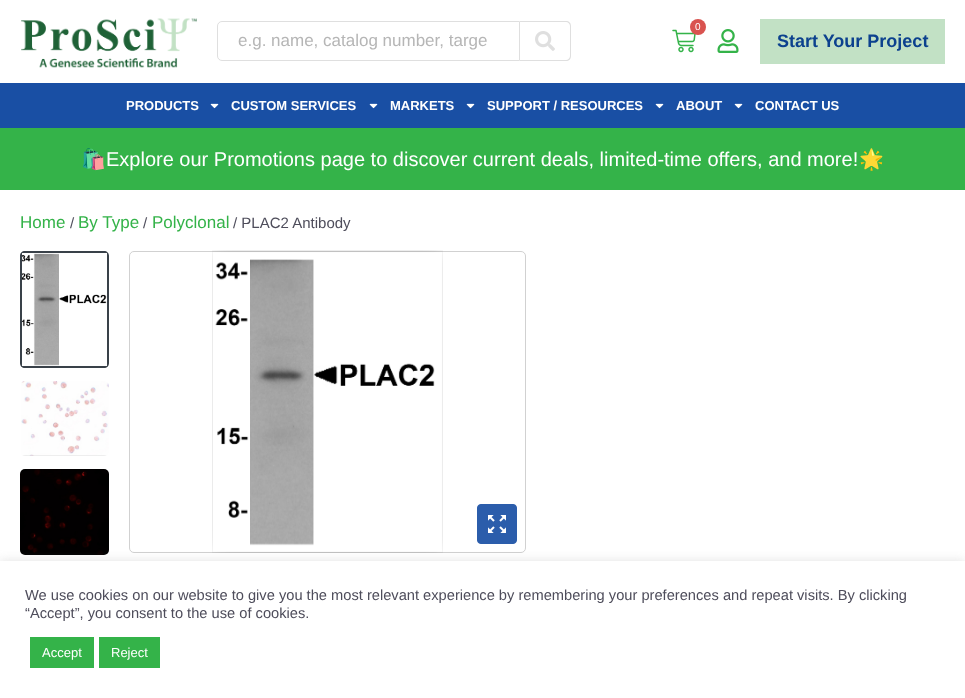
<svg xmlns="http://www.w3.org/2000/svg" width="965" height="698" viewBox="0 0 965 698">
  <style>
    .t1 { font: 17px Liberation Sans; fill: #b6b6b6; }
    .t2 { font: 10px Liberation Sans; fill: #fff; }
    .t3 { font: bold 18px Liberation Sans; fill: #0c418e; }
    .t4 { font: bold 13px Liberation Sans; fill: #fff; }
    .t5 { font: 20px Noto Color Emoji; fill: #fff; }
    .t6 { font: 20px Liberation Sans; fill: #fff; }
    .t7 { font: 17px Liberation Sans; fill: #34b349; }
    .t8 { font: 15px Liberation Sans; fill: #4e4d5b; }
    .t9 { font: 14.67px Liberation Sans; fill: #4e4d5b; }
    .t10 { font: 13px Liberation Sans; fill: #fff; }
  </style>
  <rect width="100%" height="100%" fill="#fff"/>
  <image x="21" y="18" width="176" height="50" href="images/1.png"/>
  <path d="M222 21.5H519.5V60.5H222C219.5 60.5 217.5 58.5 217.5 56V26C217.5 23.5 219.5 21.5 222 21.5Z" fill="none" stroke="#dfdfdf"/>
  <text x="238" y="46" class="t1">e.g. name, catalog number, targe</text>
  <path d="M520 21H566C569 21 571 23 571 26V56C571 59 569 61 566 61H520ZM520 22H566C568 22 570 24 570 26V56C570 58 568 60 566 60H520Z" fill="#dfdfdf" fill-rule="evenodd"/>
  <image x="535" y="31" width="20" height="20" href="images/2.png"/>
  <image x="672" y="29" width="24" height="24" href="images/3.png"/>
  <circle cx="698" cy="27" r="8" fill="#d9534f"/>
  <text x="695" y="30" class="t2">0</text>
  <image x="717" y="29" width="22" height="24" href="images/4.png"/>
  <rect x="760" y="19" width="185" height="45" fill="#c2e1c5"/>
  <text x="777" y="47" class="t3">Start Your Project</text>
  <rect x="0" y="83" width="965" height="45" fill="#194fa4"/>
  <text x="126" y="110" class="t4">PRODUCTS</text>
  <image x="210" y="103" width="9" height="6" href="images/5.png"/>
  <text x="231" y="110" class="t4">CUSTOM SERVICES</text>
  <image x="369" y="103" width="9" height="6" href="images/5.png"/>
  <text x="390" y="110" class="t4">MARKETS</text>
  <image x="466" y="103" width="9" height="6" href="images/5.png"/>
  <text x="487" y="110" class="t4">SUPPORT / RESOURCES</text>
  <image x="655" y="103" width="9" height="6" href="images/5.png"/>
  <text x="676" y="110" class="t4">ABOUT</text>
  <image x="734" y="103" width="9" height="6" href="images/5.png"/>
  <text x="755" y="110" class="t4">CONTACT US</text>
  <rect x="0" y="128" width="965" height="62" fill="#34b349"/>
  <text x="81" y="166" class="t5">🛍️</text>
  <text x="106" y="166" class="t6">Explore our Promotions page to discover current deals, limited-time offers, and more!</text>
  <text x="859" y="166" class="t5">🌟</text>
  <text x="20" y="228" class="t7">Home</text>
  <text x="70" y="228" class="t8">/</text>
  <text x="78" y="228" class="t7">By Type</text>
  <text x="143" y="228" class="t8">/</text>
  <text x="152" y="228" class="t7">Polyclonal</text>
  <text x="233" y="228" class="t8">/ PLAC2 Antibody</text>
  <image x="20" y="253" width="87" height="113" href="images/6.png"/>
  <path d="M25 251C22 251 20 253 20 256V363C20 366 22 368 25 368H104C107 368 109 366 109 363V256C109 253 107 251 104 251ZM22 253V366H107V253Z" fill="#394149" fill-rule="evenodd"/>
  <image x="21" y="381" width="88" height="75" href="images/7.png"/>
  <image x="20" y="469" width="89" height="86" href="images/8.png"/>
  <rect x="129.5" y="251.5" width="396" height="301" rx="4.5" fill="none" stroke="#d1d1d1"/>
  <image x="212" y="250" width="231" height="303" href="images/9.png"/>
  <image x="477" y="504" width="40" height="40" href="images/10.png"/>
  <rect x="0" y="560" width="965" height="137" fill="#acabab4d" filter="blur(5px)"/>
  <rect x="0" y="561" width="965" height="137" fill="#fff"/>
  <text x="25" y="600" class="t9">We use cookies on our website to give you the most relevant experience by remembering your preferences and repeat visits. By clicking</text>
  <text x="25" y="618" class="t9">“Accept”, you consent to the use of cookies.</text>
  <rect x="30" y="637" width="64" height="31" fill="#34b349"/>
  <text x="42" y="657" class="t10">Accept</text>
  <rect x="99" y="637" width="61" height="31" fill="#34b349"/>
  <text x="111" y="657" class="t10">Reject</text>
</svg>
